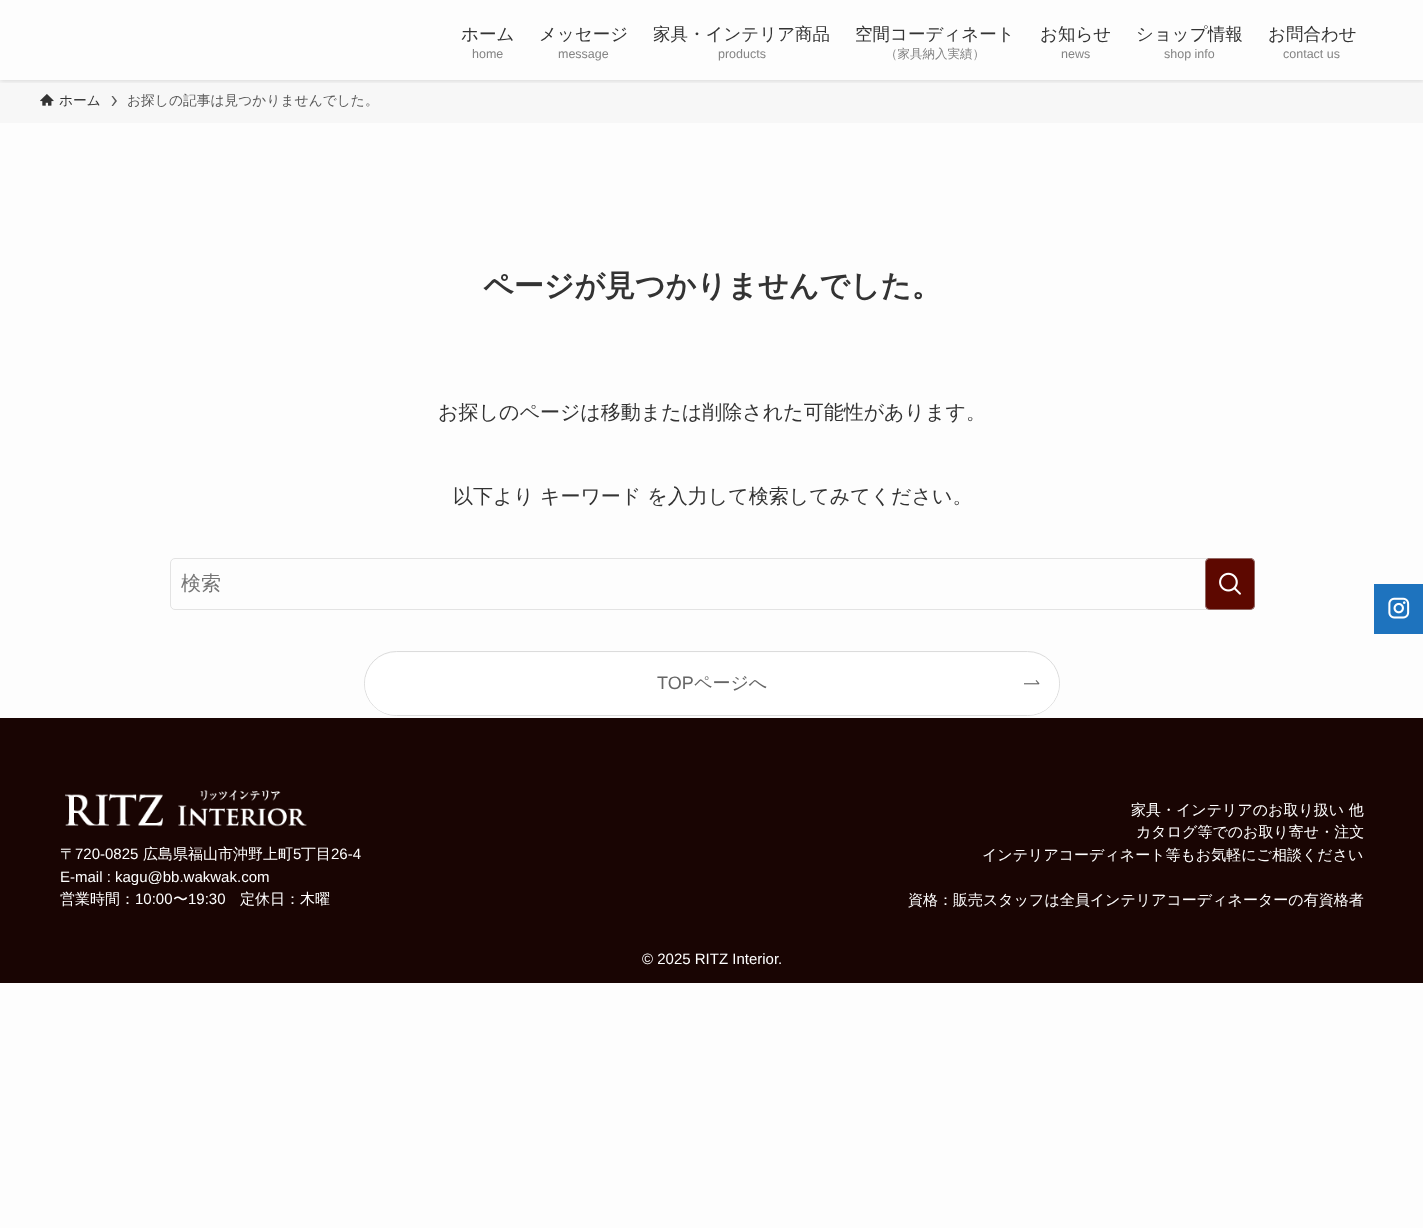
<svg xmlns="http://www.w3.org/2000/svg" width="1423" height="1228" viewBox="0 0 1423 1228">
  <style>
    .t1 { font: 500 17.5px WenQuanYi Zen Hei; fill: #333; }
    .t2 { font: 12.5px Liberation Sans; fill: #848484; }
    .t3 { font: 500 12.5px WenQuanYi Zen Hei; fill: #848484; }
    .t4 { font: 500 13.75px WenQuanYi Zen Hei; fill: #333; }
    .t5 { font: 500 13.75px WenQuanYi Zen Hei; fill: #5a5a5a; }
    .t6 { font: bold 30px WenQuanYi Zen Hei; fill: #333; }
    .t7 { font: 500 20px WenQuanYi Zen Hei; fill: #333; }
    .t8 { font: 500 20px WenQuanYi Zen Hei; fill: #757575; }
    .t9 { font: 18px Liberation Sans; fill: #666; }
    .t10 { font: 500 18px WenQuanYi Zen Hei; fill: #666; }
    .t11 { font: 500 15px WenQuanYi Zen Hei; fill: #fff; }
    .t12 { font: 15px Liberation Sans; fill: #fff; }
  </style>
  <defs>
    <clipPath id="clip1"><rect x="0" y="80" width="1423" height="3"/></clipPath>
  </defs>
  <rect width="100%" height="100%" fill="#fdfdfd"/>
  <rect x="0" y="80" width="1423" height="43" fill="#f7f7f7"/>
  <g clip-path="url(#clip1)">
    <rect x="0" y="1" width="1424" height="80" fill="#0000001f" filter="blur(2.5px)"/>
  </g>
  <text x="461" y="40" class="t1">ホーム</text>
  <text x="472" y="58" class="t2">home</text>
  <text x="539" y="40" class="t1">メッセージ</text>
  <text x="558" y="58" class="t2">message</text>
  <text x="653" y="40" class="t1">家具・インテリア商品</text>
  <text x="718" y="58" class="t2">products</text>
  <text x="855" y="40" class="t1">空間コーディネート</text>
  <text x="885" y="58" class="t3">（家具納入実績）</text>
  <text x="1040" y="40" class="t1">お知らせ</text>
  <text x="1061" y="58" class="t2">news</text>
  <text x="1136" y="40" class="t1">ショップ情報</text>
  <text x="1164" y="58" class="t2">shop info</text>
  <text x="1268" y="40" class="t1">お問合わせ</text>
  <text x="1283" y="58" class="t2">contact us</text>
  <image x="40" y="94" width="14" height="12" href="images/1.png"/>
  <text x="59" y="105" class="t4">ホーム</text>
  <path d="M113 96H111.5L115 101L111.5 106H113L117 101Z" fill="#5a5a5a"/>
  <text x="127" y="105" class="t5">お探しの記事は見つかりませんでした。</text>
  <text x="483" y="296" class="t6">ページが見つかりませんでした。</text>
  <text x="438" y="419" class="t7">お探しのページは移動または削除された可能性があります。</text>
  <text x="453" y="503" class="t7">以下より キーワード を入力して検索してみてください。</text>
  <rect x="170.5" y="558.5" width="1084" height="51" rx="4.5" fill="none" stroke="#e3e3e3"/>
  <text x="181" y="590" class="t8">検索</text>
  <rect x="1205" y="558" width="50" height="52" rx="5" fill="#5d0800"/>
  <rect x="1205.5" y="558.5" width="49" height="51" rx="4.5" fill="none" stroke="#c7c7c780"/>
  <image x="1219" y="572" width="22" height="23" href="images/2.png"/>
  <rect x="364.5" y="651.5" width="695" height="64" rx="32" fill="none" stroke="#dcdcdc"/>
  <rect x="365" y="653" width="694" height="62" rx="31" fill="#fff"/>
  <text x="657" y="689" class="t9">TOP</text>
  <text x="694" y="689" class="t10">ページへ</text>
  <image x="1024" y="680" width="16" height="5" href="images/3.png"/>
  <rect x="0" y="718" width="1423" height="265" fill="#190503"/>
  <image x="65" y="790" width="242" height="37" href="images/4.png"/>
  <text x="60" y="859" class="t11">〒</text>
  <text x="75" y="859" class="t12">720-0825</text>
  <text x="143" y="859" class="t11">広島県福山市沖野上町</text>
  <text x="293" y="859" class="t12">5</text>
  <text x="301" y="859" class="t11">丁目</text>
  <text x="331" y="859" class="t12">26-4</text>
  <text x="60" y="882" class="t12">E-mail : kagu@bb.wakwak.com</text>
  <text x="60" y="904" class="t11">営業時間：</text>
  <text x="135" y="904" class="t12">10:00</text>
  <text x="173" y="904" class="t11">〜</text>
  <text x="188" y="904" class="t12">19:30</text>
  <text x="240" y="904" class="t11">定休日：木曜</text>
  <text x="1131" y="815" class="t11">家具・インテリアのお取り扱い 他</text>
  <text x="1136" y="837" class="t11">カタログ等でのお取り寄せ・注文</text>
  <text x="982" y="860" class="t11">インテリアコーディネート等もお気軽にご相談ください</text>
  <text x="908" y="905" class="t11">資格：販売スタッフは全員インテリアコーディネーターの有資格者</text>
  <text x="642" y="964" class="t12">© 2025 RITZ Interior.</text>
  <rect x="1374" y="584" width="49" height="50" fill="#1e73be"/>
  <image x="1388" y="597" width="22" height="22" href="images/5.png"/>
</svg>
